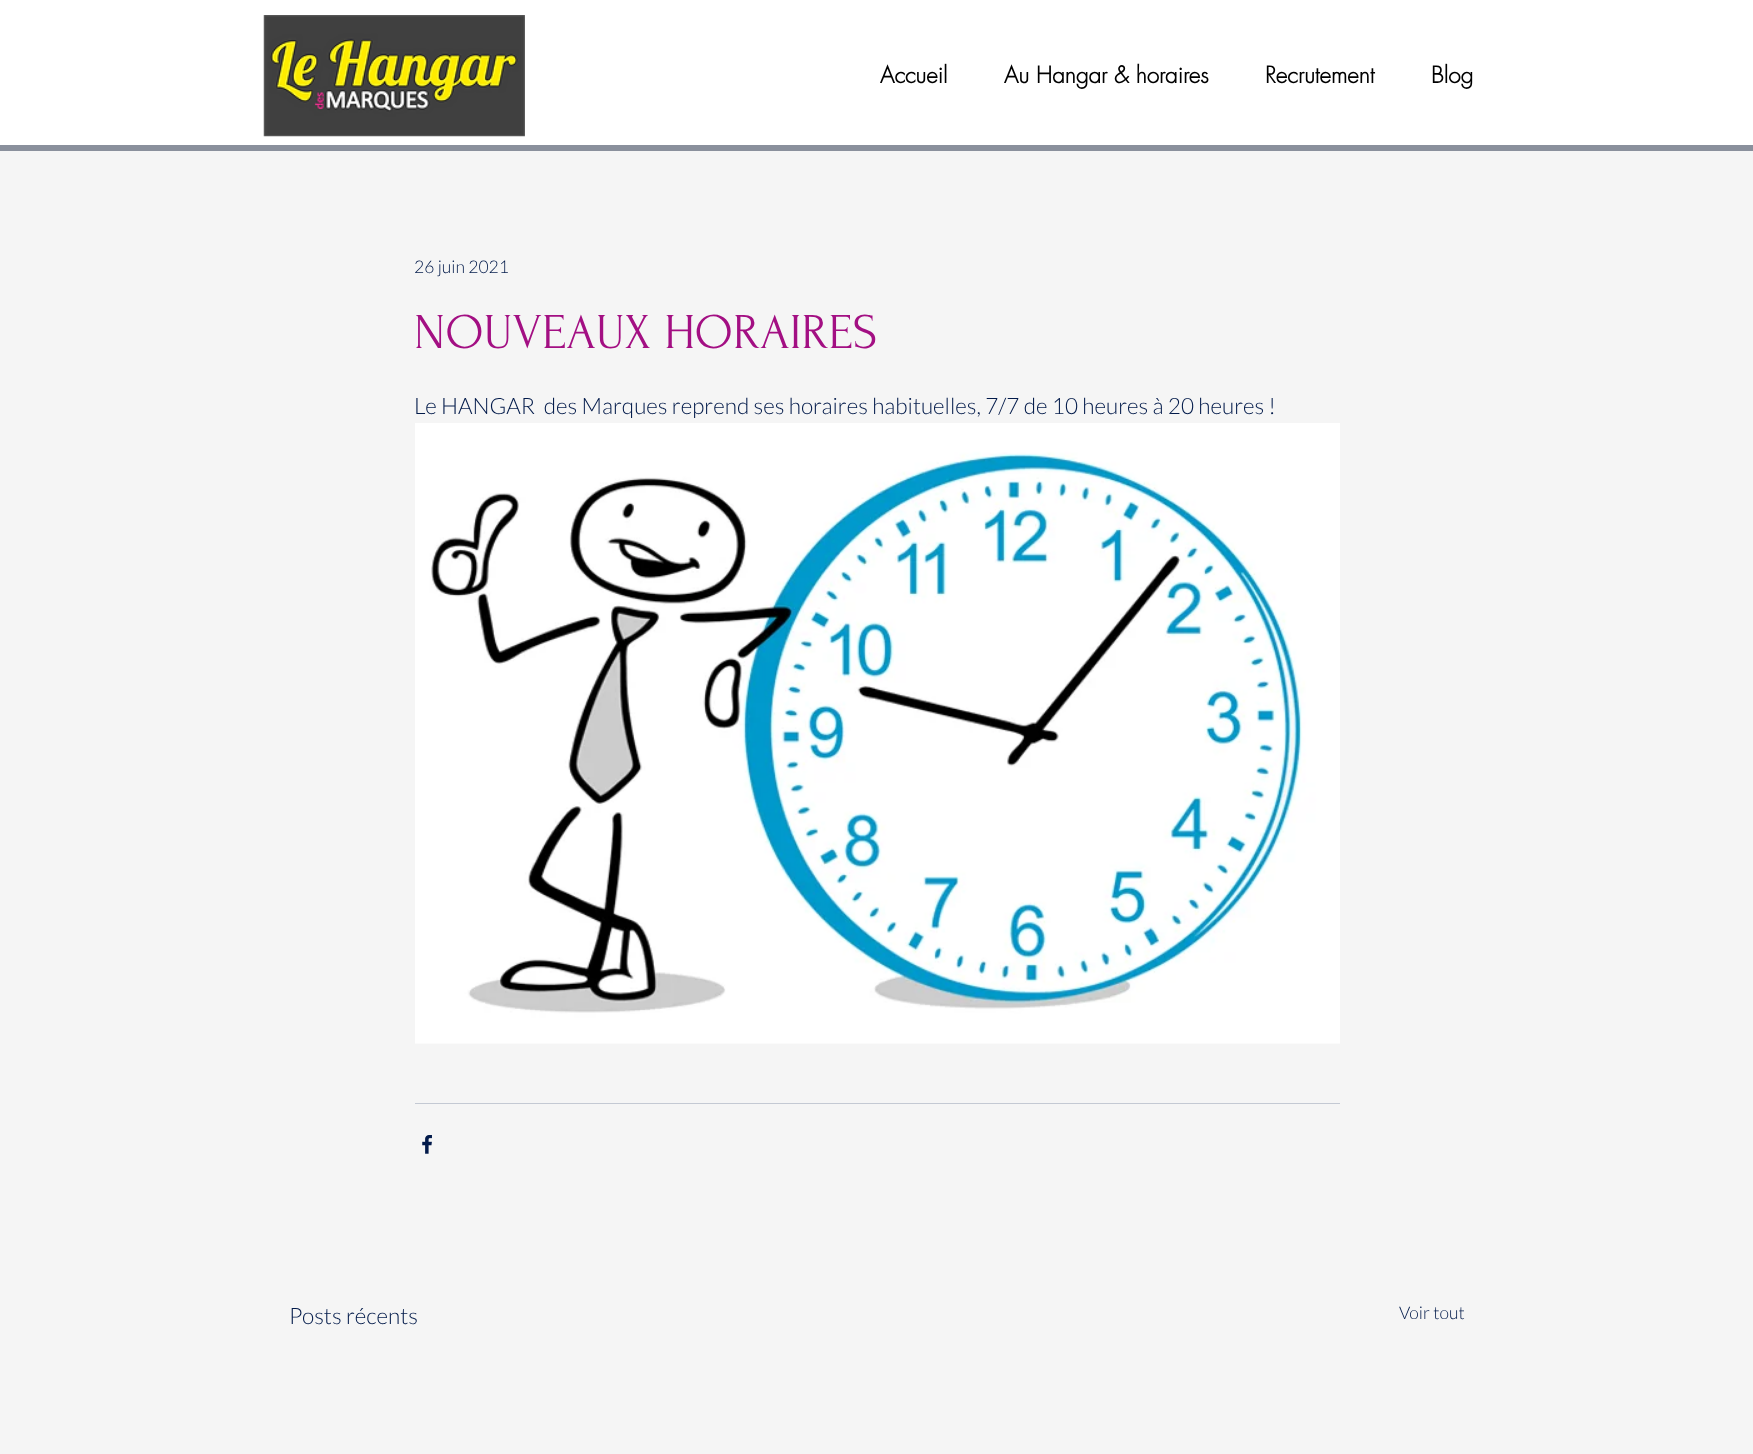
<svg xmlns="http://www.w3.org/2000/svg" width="1753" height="1454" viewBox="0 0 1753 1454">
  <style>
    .t1 { font: bold 22.5px futura; fill: #000; }
    .t2 { font: 300 17.5px Lato; fill: #021a4a; }
    .t3 { font: 50px Forum; fill: #a30f83; }
    .t4 { font: 300 22.5px Lato; fill: #021a4a; }
  </style>
  <rect width="100%" height="100%" fill="#f5f5f5"/>
  <rect x="0" y="0" width="1753" height="145" fill="#fff"/>
  <rect x="0" y="145" width="1753" height="6" fill="#8a909c"/>
  <image x="263" y="15" width="262" height="122" href="images/1.png"/>
  <text x="880" y="83" class="t1">Accueil</text>
  <text x="1004" y="83" class="t1">Au Hangar &amp; horaires</text>
  <text x="1265" y="83" class="t1">Recrutement</text>
  <text x="1431" y="83" class="t1">Blog</text>
  <text x="414" y="273" class="t2">26 juin 2021</text>
  <text x="414" y="348" class="t3">NOUVEAUX HORAIRES</text>
  <text x="414" y="414" class="t4" xml:space="preserve">Le HANGAR  des Marques reprend ses horaires habituelles, 7/7 de 10 heures à 20 heures !</text>
  <image x="415" y="423" width="925" height="621" href="images/2.png"/>
  <rect x="415" y="1103" width="925" height="1" fill="#c4c9d3"/>
  <image x="422" y="1135" width="10" height="19" href="images/3.png"/>
  <text x="289" y="1324" class="t4">Posts récents</text>
  <text x="1399" y="1319" class="t2">Voir tout</text>
</svg>
